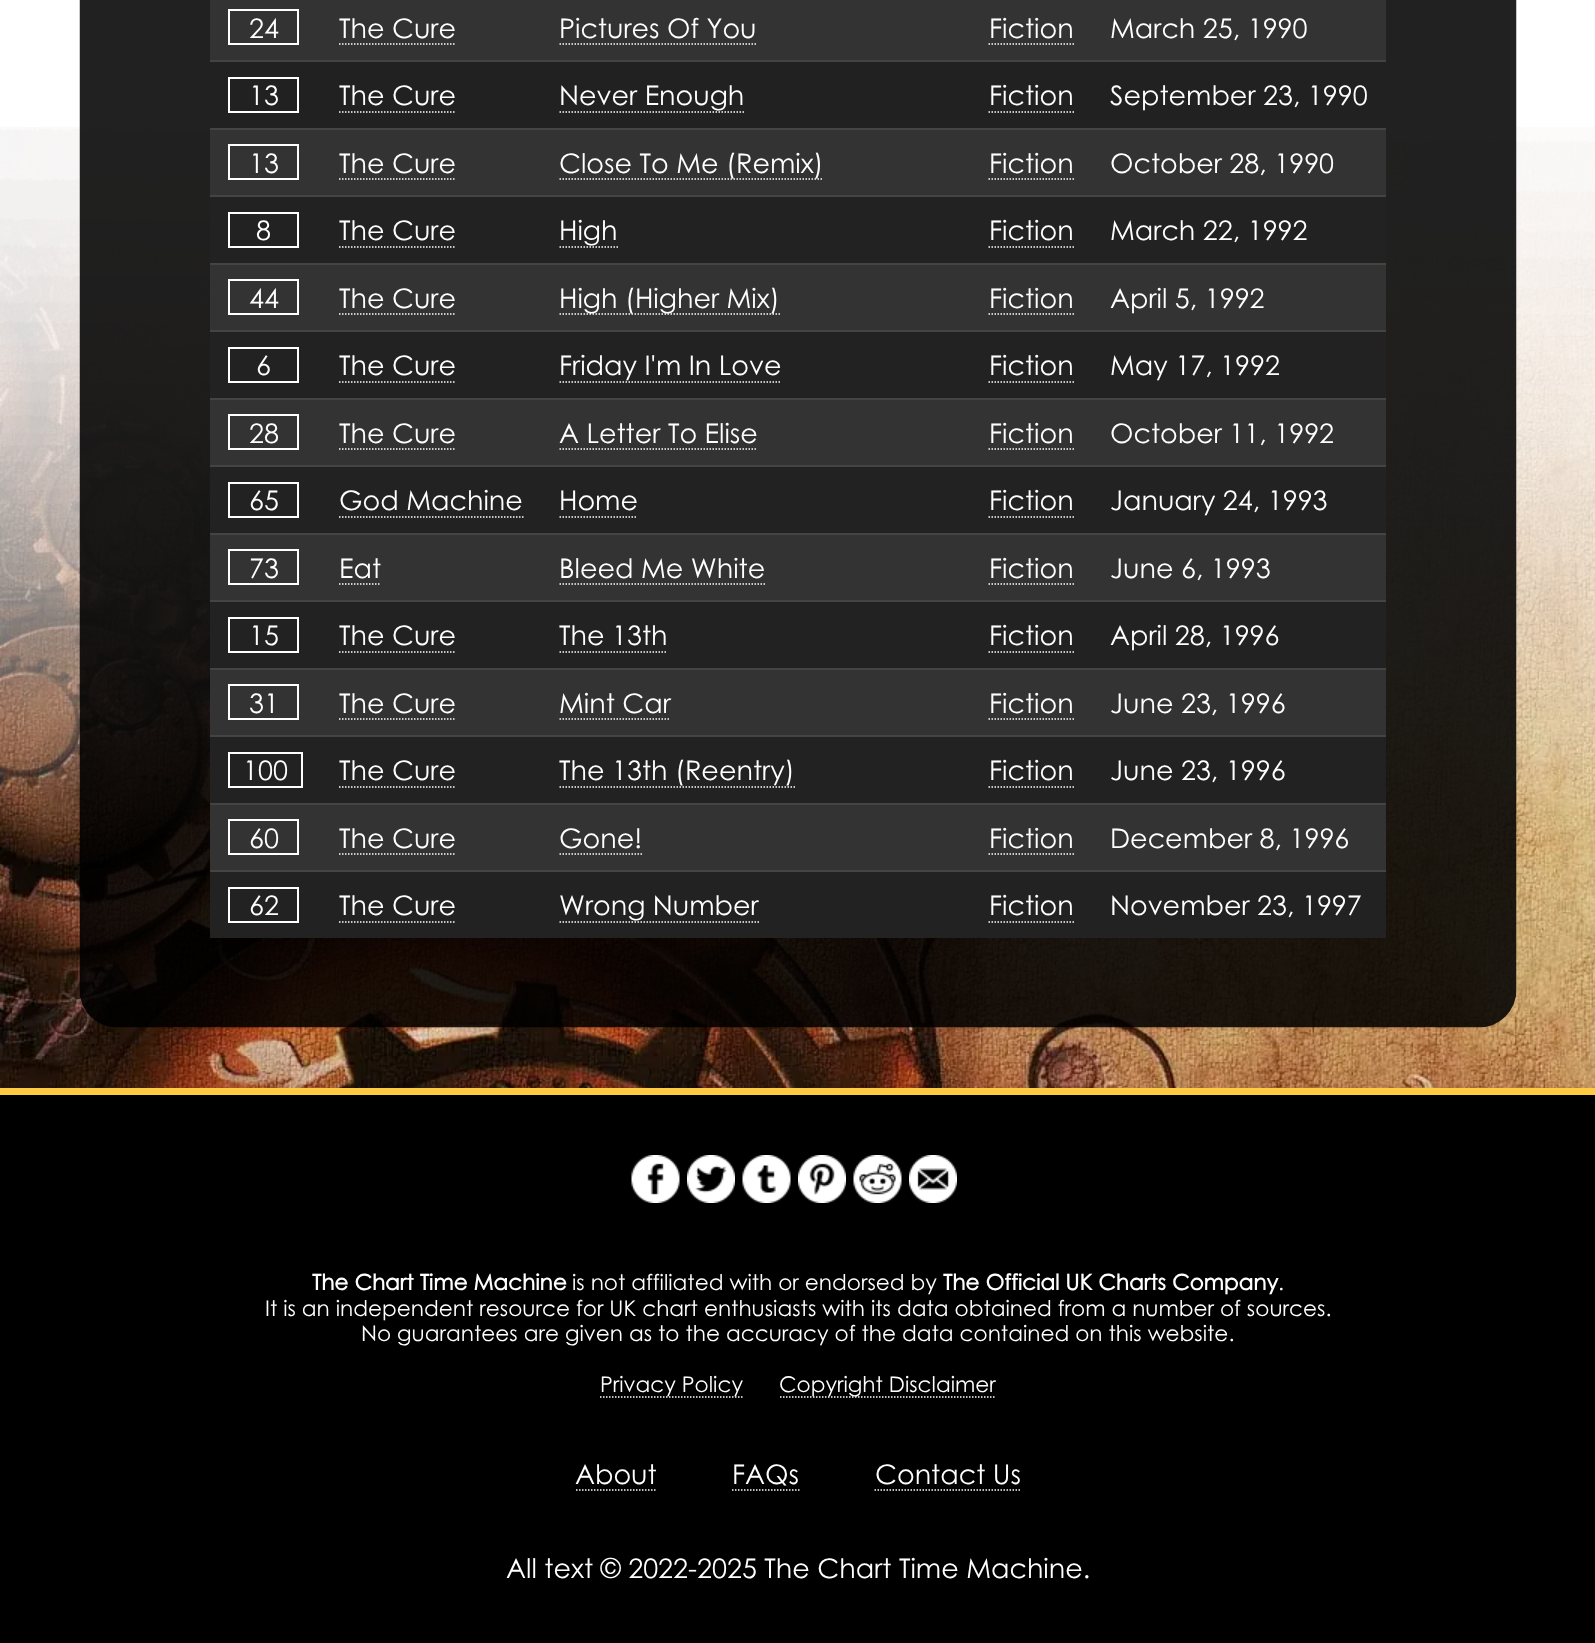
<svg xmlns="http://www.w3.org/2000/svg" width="1595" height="1643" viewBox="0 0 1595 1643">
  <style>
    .t1 { font: 27px Century Gothic; fill: #fff; }
    .t2 { font: bold 21.6px Century Gothic; fill: #fff; }
    .t3 { font: 21.6px Century Gothic; fill: #fff; }
  </style>
  <rect width="100%" height="100%" fill="#fff"/>
  <image x="0" y="127" width="1595" height="961" href="images/2.png"/>
  <image x="79" y="0" width="1438" height="1028" href="images/1.png"/>
  <rect x="210" y="0" width="1176" height="60" fill="#333"/>
  <rect x="210" y="60" width="1176" height="2" fill="#444"/>
  <rect x="229" y="10" width="69" height="34" fill="none" stroke="#fff" stroke-width="2"/>
  <text x="249" y="38" class="t1">24</text>
  <text x="339" y="38" class="t1">The Cure</text>
  <path d="M339 44H456" fill="none" stroke="#fff" stroke-width="1.5" stroke-dasharray="1.5 1.5"/>
  <text x="559" y="38" class="t1">Pictures Of You</text>
  <path d="M559.5 44H756" fill="none" stroke="#fff" stroke-width="1.5" stroke-dasharray="1.5 1.5"/>
  <text x="989" y="38" class="t1">Fiction</text>
  <path d="M988.5 44H1074" fill="none" stroke="#fff" stroke-width="1.5" stroke-dasharray="1.5 1.5"/>
  <text x="1110" y="38" class="t1">March 25, 1990</text>
  <rect x="210" y="128" width="1176" height="2" fill="#444"/>
  <rect x="229" y="78" width="69" height="34" fill="none" stroke="#fff" stroke-width="2"/>
  <text x="249" y="105" class="t1">13</text>
  <text x="339" y="105" class="t1">The Cure</text>
  <path d="M339 112H456" fill="none" stroke="#fff" stroke-width="1.5" stroke-dasharray="1.5 1.5"/>
  <text x="559" y="105" class="t1">Never Enough</text>
  <path d="M559.5 112H744" fill="none" stroke="#fff" stroke-width="1.5" stroke-dasharray="1.5 1.5"/>
  <text x="989" y="105" class="t1">Fiction</text>
  <path d="M988.5 112H1074" fill="none" stroke="#fff" stroke-width="1.5" stroke-dasharray="1.5 1.5"/>
  <text x="1110" y="105" class="t1">September 23, 1990</text>
  <rect x="210" y="130" width="1176" height="65" fill="#333"/>
  <rect x="210" y="195" width="1176" height="2" fill="#444"/>
  <rect x="229" y="145" width="69" height="34" fill="none" stroke="#fff" stroke-width="2"/>
  <text x="249" y="173" class="t1">13</text>
  <text x="339" y="173" class="t1">The Cure</text>
  <path d="M339 179H456" fill="none" stroke="#fff" stroke-width="1.5" stroke-dasharray="1.5 1.5"/>
  <path d="M559.5 179H823.5" fill="none" stroke="#fff" stroke-width="1.5" stroke-dasharray="1.5 1.5"/>
  <text x="559" y="173" class="t1">Close To Me (Remix)</text>
  <text x="989" y="173" class="t1">Fiction</text>
  <path d="M988.5 179H1074" fill="none" stroke="#fff" stroke-width="1.5" stroke-dasharray="1.5 1.5"/>
  <text x="1110" y="173" class="t1">October 28, 1990</text>
  <rect x="210" y="197" width="1176" height="66" fill="#222"/>
  <rect x="210" y="263" width="1176" height="2" fill="#444"/>
  <rect x="229" y="213" width="69" height="34" fill="none" stroke="#fff" stroke-width="2"/>
  <text x="256" y="240" class="t1">8</text>
  <text x="339" y="240" class="t1">The Cure</text>
  <path d="M339 247H456" fill="none" stroke="#fff" stroke-width="1.5" stroke-dasharray="1.5 1.5"/>
  <text x="559" y="240" class="t1">High</text>
  <path d="M559.5 247H618" fill="none" stroke="#fff" stroke-width="1.5" stroke-dasharray="1.5 1.5"/>
  <text x="989" y="240" class="t1">Fiction</text>
  <path d="M988.5 247H1074" fill="none" stroke="#fff" stroke-width="1.5" stroke-dasharray="1.5 1.5"/>
  <text x="1110" y="240" class="t1">March 22, 1992</text>
  <rect x="210" y="265" width="1176" height="65" fill="#333"/>
  <rect x="210" y="330" width="1176" height="2" fill="#444"/>
  <rect x="229" y="280" width="69" height="34" fill="none" stroke="#fff" stroke-width="2"/>
  <text x="249" y="308" class="t1">44</text>
  <text x="339" y="308" class="t1">The Cure</text>
  <path d="M339 314H456" fill="none" stroke="#fff" stroke-width="1.5" stroke-dasharray="1.5 1.5"/>
  <path d="M559.5 314H780" fill="none" stroke="#fff" stroke-width="1.5" stroke-dasharray="1.5 1.5"/>
  <text x="559" y="308" class="t1">High (Higher Mix)</text>
  <text x="989" y="308" class="t1">Fiction</text>
  <path d="M988.5 314H1074" fill="none" stroke="#fff" stroke-width="1.5" stroke-dasharray="1.5 1.5"/>
  <text x="1110" y="308" class="t1">April 5, 1992</text>
  <rect x="210" y="332" width="1176" height="66" fill="#222"/>
  <rect x="210" y="398" width="1176" height="2" fill="#444"/>
  <rect x="229" y="348" width="69" height="34" fill="none" stroke="#fff" stroke-width="2"/>
  <text x="256" y="375" class="t1">6</text>
  <text x="339" y="375" class="t1">The Cure</text>
  <path d="M339 382H456" fill="none" stroke="#fff" stroke-width="1.5" stroke-dasharray="1.5 1.5"/>
  <text x="559" y="375" class="t1">Friday I'm In Love</text>
  <path d="M559.5 382H781.5" fill="none" stroke="#fff" stroke-width="1.5" stroke-dasharray="1.5 1.5"/>
  <text x="989" y="375" class="t1">Fiction</text>
  <path d="M988.5 382H1074" fill="none" stroke="#fff" stroke-width="1.5" stroke-dasharray="1.5 1.5"/>
  <text x="1110" y="375" class="t1">May 17, 1992</text>
  <rect x="210" y="400" width="1176" height="65" fill="#333"/>
  <rect x="210" y="465" width="1176" height="2" fill="#444"/>
  <rect x="229" y="415" width="69" height="34" fill="none" stroke="#fff" stroke-width="2"/>
  <text x="249" y="443" class="t1">28</text>
  <text x="339" y="443" class="t1">The Cure</text>
  <path d="M339 449H456" fill="none" stroke="#fff" stroke-width="1.5" stroke-dasharray="1.5 1.5"/>
  <text x="559" y="443" class="t1">A Letter To Elise</text>
  <path d="M559.5 449H757.5" fill="none" stroke="#fff" stroke-width="1.5" stroke-dasharray="1.5 1.5"/>
  <text x="989" y="443" class="t1">Fiction</text>
  <path d="M988.5 449H1074" fill="none" stroke="#fff" stroke-width="1.5" stroke-dasharray="1.5 1.5"/>
  <text x="1110" y="443" class="t1">October 11, 1992</text>
  <rect x="210" y="467" width="1176" height="66" fill="#222"/>
  <rect x="210" y="533" width="1176" height="2" fill="#444"/>
  <rect x="229" y="483" width="69" height="34" fill="none" stroke="#fff" stroke-width="2"/>
  <text x="249" y="510" class="t1">65</text>
  <text x="339" y="510" class="t1">God Machine</text>
  <path d="M339 517H523.5" fill="none" stroke="#fff" stroke-width="1.5" stroke-dasharray="1.5 1.5"/>
  <text x="559" y="510" class="t1">Home</text>
  <path d="M559.5 517H637.5" fill="none" stroke="#fff" stroke-width="1.5" stroke-dasharray="1.5 1.5"/>
  <text x="989" y="510" class="t1">Fiction</text>
  <path d="M988.5 517H1074" fill="none" stroke="#fff" stroke-width="1.5" stroke-dasharray="1.5 1.5"/>
  <text x="1110" y="510" class="t1">January 24, 1993</text>
  <rect x="210" y="535" width="1176" height="65" fill="#333"/>
  <rect x="210" y="600" width="1176" height="2" fill="#444"/>
  <rect x="229" y="550" width="69" height="34" fill="none" stroke="#fff" stroke-width="2"/>
  <text x="249" y="578" class="t1">73</text>
  <text x="339" y="578" class="t1">Eat</text>
  <path d="M339 584H381" fill="none" stroke="#fff" stroke-width="1.5" stroke-dasharray="1.5 1.5"/>
  <text x="559" y="578" class="t1">Bleed Me White</text>
  <path d="M559.5 584H765" fill="none" stroke="#fff" stroke-width="1.5" stroke-dasharray="1.5 1.5"/>
  <text x="989" y="578" class="t1">Fiction</text>
  <path d="M988.5 584H1074" fill="none" stroke="#fff" stroke-width="1.5" stroke-dasharray="1.5 1.5"/>
  <text x="1110" y="578" class="t1">June 6, 1993</text>
  <rect x="210" y="602" width="1176" height="66" fill="#222"/>
  <rect x="210" y="668" width="1176" height="2" fill="#444"/>
  <rect x="229" y="618" width="69" height="34" fill="none" stroke="#fff" stroke-width="2"/>
  <text x="249" y="645" class="t1">15</text>
  <text x="339" y="645" class="t1">The Cure</text>
  <path d="M339 652H456" fill="none" stroke="#fff" stroke-width="1.5" stroke-dasharray="1.5 1.5"/>
  <text x="559" y="645" class="t1">The 13th</text>
  <path d="M559.5 652H667.5" fill="none" stroke="#fff" stroke-width="1.5" stroke-dasharray="1.5 1.5"/>
  <text x="989" y="645" class="t1">Fiction</text>
  <path d="M988.5 652H1074" fill="none" stroke="#fff" stroke-width="1.5" stroke-dasharray="1.5 1.5"/>
  <text x="1110" y="645" class="t1">April 28, 1996</text>
  <rect x="210" y="670" width="1176" height="65" fill="#333"/>
  <rect x="210" y="735" width="1176" height="2" fill="#444"/>
  <rect x="229" y="685" width="69" height="34" fill="none" stroke="#fff" stroke-width="2"/>
  <text x="249" y="713" class="t1">31</text>
  <text x="339" y="713" class="t1">The Cure</text>
  <path d="M339 719H456" fill="none" stroke="#fff" stroke-width="1.5" stroke-dasharray="1.5 1.5"/>
  <text x="559" y="713" class="t1">Mint Car</text>
  <path d="M559.5 719H670.5" fill="none" stroke="#fff" stroke-width="1.5" stroke-dasharray="1.5 1.5"/>
  <text x="989" y="713" class="t1">Fiction</text>
  <path d="M988.5 719H1074" fill="none" stroke="#fff" stroke-width="1.5" stroke-dasharray="1.5 1.5"/>
  <text x="1110" y="713" class="t1">June 23, 1996</text>
  <rect x="210" y="737" width="1176" height="66" fill="#222"/>
  <rect x="210" y="803" width="1176" height="2" fill="#444"/>
  <rect x="229" y="753" width="73" height="34" fill="none" stroke="#fff" stroke-width="2"/>
  <text x="243" y="780" class="t1">100</text>
  <text x="339" y="780" class="t1">The Cure</text>
  <path d="M339 787H456" fill="none" stroke="#fff" stroke-width="1.5" stroke-dasharray="1.5 1.5"/>
  <text x="559" y="780" class="t1">The 13th (Reentry)</text>
  <path d="M559.5 787H795" fill="none" stroke="#fff" stroke-width="1.5" stroke-dasharray="1.5 1.5"/>
  <text x="989" y="780" class="t1">Fiction</text>
  <path d="M988.5 787H1074" fill="none" stroke="#fff" stroke-width="1.5" stroke-dasharray="1.5 1.5"/>
  <text x="1110" y="780" class="t1">June 23, 1996</text>
  <rect x="210" y="805" width="1176" height="65" fill="#333"/>
  <rect x="210" y="870" width="1176" height="2" fill="#444"/>
  <rect x="229" y="820" width="69" height="34" fill="none" stroke="#fff" stroke-width="2"/>
  <text x="249" y="848" class="t1">60</text>
  <text x="339" y="848" class="t1">The Cure</text>
  <path d="M339 854H456" fill="none" stroke="#fff" stroke-width="1.5" stroke-dasharray="1.5 1.5"/>
  <text x="559" y="848" class="t1">Gone!</text>
  <path d="M559.5 854H642" fill="none" stroke="#fff" stroke-width="1.5" stroke-dasharray="1.5 1.5"/>
  <text x="989" y="848" class="t1">Fiction</text>
  <path d="M988.5 854H1074" fill="none" stroke="#fff" stroke-width="1.5" stroke-dasharray="1.5 1.5"/>
  <text x="1110" y="848" class="t1">December 8, 1996</text>
  <rect x="210" y="872" width="1176" height="66" fill="#222"/>
  <rect x="229" y="888" width="69" height="34" fill="none" stroke="#fff" stroke-width="2"/>
  <text x="249" y="915" class="t1">62</text>
  <text x="339" y="915" class="t1">The Cure</text>
  <path d="M339 922H456" fill="none" stroke="#fff" stroke-width="1.5" stroke-dasharray="1.5 1.5"/>
  <text x="559" y="915" class="t1">Wrong Number</text>
  <path d="M559.5 922H759" fill="none" stroke="#fff" stroke-width="1.5" stroke-dasharray="1.5 1.5"/>
  <text x="989" y="915" class="t1">Fiction</text>
  <path d="M988.5 922H1074" fill="none" stroke="#fff" stroke-width="1.5" stroke-dasharray="1.5 1.5"/>
  <text x="1110" y="915" class="t1">November 23, 1997</text>
  <rect x="0" y="1095" width="1595" height="548" fill="#000"/>
  <rect x="0" y="1088" width="1595" height="7" fill="#ffcb41"/>
  <image x="631" y="1155" width="49" height="48" href="images/3.png"/>
  <image x="687" y="1155" width="48" height="48" href="images/4.png"/>
  <image x="742" y="1155" width="49" height="48" href="images/5.png"/>
  <image x="798" y="1155" width="48" height="48" href="images/6.png"/>
  <image x="853" y="1155" width="49" height="48" href="images/7.png"/>
  <image x="909" y="1155" width="48" height="48" href="images/8.png"/>
  <text x="312" y="1290" class="t2">The Chart Time Machine</text>
  <text x="572" y="1290" class="t3">is not affiliated with or endorsed by</text>
  <text x="943" y="1290" class="t2">The Official UK Charts Company</text>
  <text x="1278" y="1290" class="t3">.</text>
  <text x="265" y="1316" class="t3">It is an independent resource for UK chart enthusiasts with its data obtained from a number of sources.</text>
  <text x="361" y="1341" class="t3">No guarantees are given as to the accuracy of the data contained on this website.</text>
  <path d="M600 1397H742.5" fill="none" stroke="#fff" stroke-width="1.5" stroke-dasharray="1.5 1.5"/>
  <text x="600" y="1392" class="t3">Privacy Policy</text>
  <path d="M780 1397H996" fill="none" stroke="#fff" stroke-width="1.5" stroke-dasharray="1.5 1.5"/>
  <text x="779" y="1392" class="t3">Copyright Disclaimer</text>
  <path d="M576 1490H657" fill="none" stroke="#fff" stroke-width="1.5" stroke-dasharray="1.5 1.5"/>
  <text x="575" y="1484" class="t1">About</text>
  <path d="M732 1490H799.5" fill="none" stroke="#fff" stroke-width="1.5" stroke-dasharray="1.5 1.5"/>
  <text x="732" y="1484" class="t1">FAQs</text>
  <path d="M874.5 1490H1020" fill="none" stroke="#fff" stroke-width="1.5" stroke-dasharray="1.5 1.5"/>
  <text x="875" y="1484" class="t1">Contact Us</text>
  <text x="506" y="1578" class="t1">All text © 2022-2025 The Chart Time Machine.</text>
</svg>
